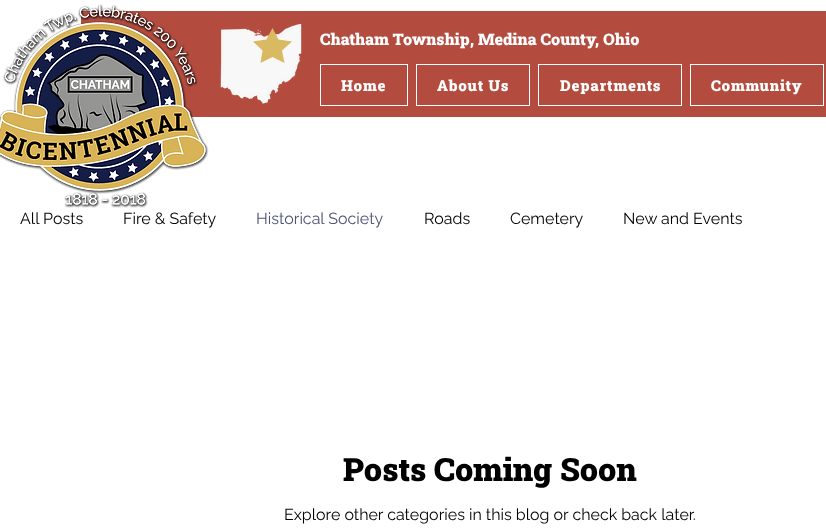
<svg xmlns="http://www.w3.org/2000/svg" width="826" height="531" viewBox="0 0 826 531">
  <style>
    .t1 { font: 900 16px Roboto Slab; fill: #fff; }
    .t2 { font: 900 15px Roboto Slab; letter-spacing: 0.75px; fill: #fff; }
    .t3 { font: 16px Raleway; fill: #000; }
    .t4 { font: 16px Raleway; fill: #4b5275; }
    .t5 { font: 900 32px Roboto Slab; fill: #000; }
  </style>
  <rect width="100%" height="100%" fill="#fff"/>
  <rect x="81" y="11" width="745" height="106" fill="#b34c3f"/>
  <image x="0" y="4" width="209" height="204" href="images/1.png"/>
  <image x="220" y="24" width="82" height="80" href="images/2.png"/>
  <path d="M272.5 28L278.5 39.5L292 41.5L282 50.5L284.5 63L272.5 57L260.5 63L262.5 50.5L253 41.5L266.5 39.5Z" fill="#d9ba62"/>
  <text x="320" y="45" class="t1">Chatham Township, Medina County, Ohio</text>
  <rect x="320.5" y="64.5" width="87" height="41" fill="none" stroke="#fff"/>
  <text x="341" y="91" class="t2">Home</text>
  <rect x="416.5" y="64.5" width="113" height="41" fill="none" stroke="#fff"/>
  <text x="437" y="91" class="t2">About Us</text>
  <rect x="538.5" y="64.5" width="143" height="41" fill="none" stroke="#fff"/>
  <text x="560" y="91" class="t2">Departments</text>
  <rect x="690.5" y="64.5" width="133" height="41" fill="none" stroke="#fff"/>
  <text x="711" y="91" class="t2">Community</text>
  <text x="20" y="224" class="t3">All Posts</text>
  <text x="123" y="224" class="t3">Fire &amp; Safety</text>
  <text x="256" y="224" class="t4">Historical Society</text>
  <text x="424" y="224" class="t3">Roads</text>
  <text x="510" y="224" class="t3">Cemetery</text>
  <text x="623" y="224" class="t3">New and Events</text>
  <text x="343" y="481" class="t5">Posts Coming Soon</text>
  <text x="284" y="520" class="t3">Explore other categories in this blog or check back later.</text>
</svg>
